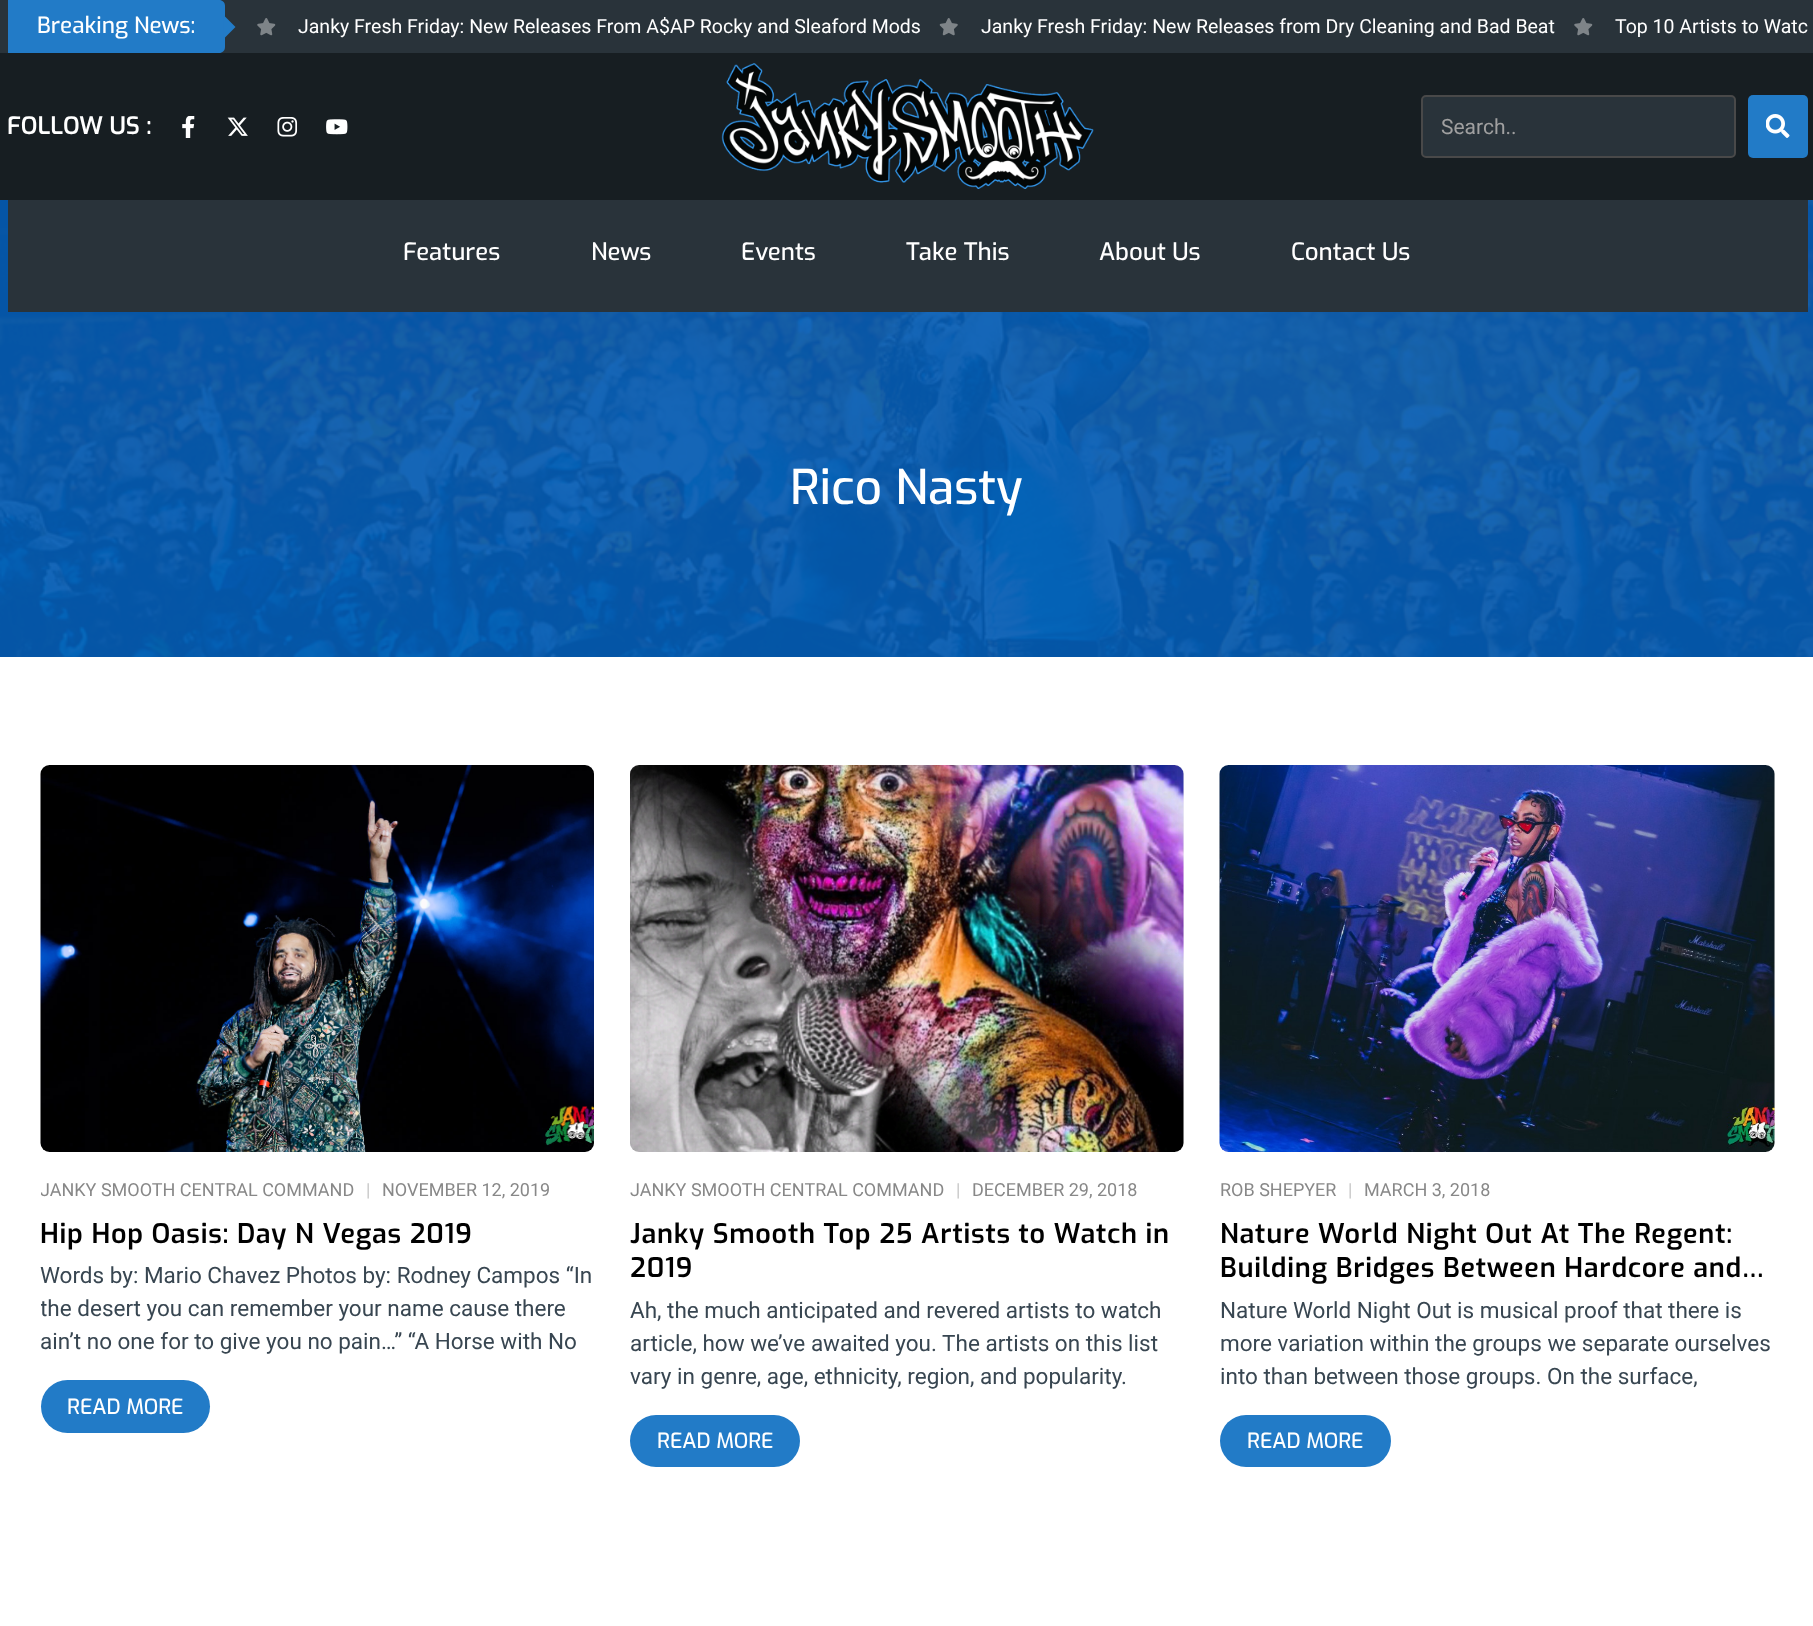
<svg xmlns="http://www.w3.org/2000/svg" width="1813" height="1626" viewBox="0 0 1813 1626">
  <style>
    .t1 { font: 500 22.5px Exo; fill: #fff; }
    .t2 { font: 19.5px Roboto; fill: #fff; }
    .t3 { font: 600 24px Exo; fill: #fff; }
    .t4 { font: 21px Roboto; fill: #a0a0a0; }
    .t5 { font: 500 24px Exo; fill: #fff; }
    .t6 { font: 500 48px Exo; fill: #fff; }
    .t7 { font: 18px Roboto; fill: #888; }
    .t8 { font: 18px Roboto; fill: #c7c7c7; }
    .t9 { font: 600 27px Exo; letter-spacing: 0.75px; fill: #000; }
    .t10 { font: 22.5px Roboto; fill: #384651; }
    .t11 { font: 500 21px Exo; fill: #fff; }
  </style>
  <defs>
    <clipPath id="clip1"><rect x="41" y="1179" width="525" height="21"/></clipPath>
    <clipPath id="clip2"><rect x="41" y="1259" width="553" height="99"/></clipPath>
  </defs>
  <rect width="100%" height="100%" fill="#fff"/>
  <rect x="0" y="0" width="1813" height="53" fill="#29333a"/>
  <path d="M8 0H219C222.5 0 225 2.5 225 6V47C225 50.5 222.5 53 219 53H8Z" fill="#227bc7"/>
  <text x="37" y="33" class="t1">Breaking News:</text>
  <path d="M223.5 39V15L235.5 27Z" fill="#227bc7"/>
  <image x="257" y="18" width="19" height="18" href="images/1.png"/>
  <text x="298" y="33" class="t2">Janky Fresh Friday: New Releases From A$AP Rocky and Sleaford Mods</text>
  <image x="939" y="18" width="19" height="18" href="images/2.png"/>
  <text x="981" y="33" class="t2">Janky Fresh Friday: New Releases from Dry Cleaning and Bad Beat</text>
  <image x="1574" y="18" width="19" height="18" href="images/1.png"/>
  <text x="1615" y="33" class="t2">Top 10 Artists to Watc</text>
  <rect x="0" y="53" width="1813" height="147" fill="#171e22"/>
  <text x="7" y="134" class="t3">FOLLOW US :</text>
  <image x="182" y="116" width="13" height="22" href="images/3.png"/>
  <image x="227" y="117" width="21" height="19" href="images/4.png"/>
  <image x="277" y="117" width="21" height="20" href="images/5.png"/>
  <image x="326" y="119" width="22" height="16" href="images/6.png"/>
  <image x="721" y="63" width="373" height="126" href="images/7.png"/>
  <rect x="1422" y="96" width="313" height="61" rx="4" fill="#29333a" stroke="#494949" stroke-width="2"/>
  <text x="1441" y="134" class="t4">Search..</text>
  <rect x="1748" y="95" width="60" height="63" rx="5" fill="#227bc7"/>
  <image x="1766" y="114" width="24" height="24" href="images/8.png"/>
  <image x="0" y="200" width="1813" height="457" href="images/9.png"/>
  <rect x="8" y="200" width="1800" height="112" fill="#29333a"/>
  <text x="403" y="260" class="t5">Features</text>
  <text x="591" y="260" class="t5">News</text>
  <text x="741" y="260" class="t5">Events</text>
  <text x="906" y="260" class="t5">Take This</text>
  <text x="1099" y="260" class="t5">About Us</text>
  <text x="1291" y="260" class="t5">Contact Us</text>
  <text x="790" y="504" class="t6">Rico Nasty</text>
  <rect x="41" y="765" width="553" height="387" rx="9" fill="#f3f3f3"/>
  <image x="40" y="765" width="554" height="387" href="images/10.png"/>
  <g clip-path="url(#clip1)">
    <text x="40" y="1196" class="t7">JANKY SMOOTH CENTRAL COMMAND</text>
  </g>
  <text x="366" y="1196" class="t8">|</text>
  <text x="382" y="1196" class="t7">NOVEMBER 12, 2019</text>
  <text x="40" y="1243" class="t9">Hip Hop Oasis: Day N Vegas 2019</text>
  <text x="40" y="1283" class="t10">Words by: Mario Chavez Photos by: Rodney Campos “In</text>
  <g clip-path="url(#clip2)">
    <text x="40" y="1316" class="t10">the desert you can remember your name cause there</text>
  </g>
  <text x="40" y="1349" class="t10">ain’t no one for to give you no pain…” “A Horse with No</text>
  <rect x="41" y="1380" width="169" height="53" rx="26.5" fill="#227bc7"/>
  <text x="67" y="1414" class="t11">READ MORE</text>
  <rect x="630" y="765" width="554" height="387" rx="9" fill="#f3f3f3"/>
  <image x="630" y="765" width="554" height="387" href="images/11.png"/>
  <text x="630" y="1196" class="t7">JANKY SMOOTH CENTRAL COMMAND</text>
  <text x="956" y="1196" class="t8">|</text>
  <text x="972" y="1196" class="t7">DECEMBER 29, 2018</text>
  <text x="630" y="1243" class="t9">Janky Smooth Top 25 Artists to Watch in</text>
  <text x="630" y="1277" class="t9">2019</text>
  <text x="630" y="1318" class="t10">Ah, the much anticipated and revered artists to watch</text>
  <text x="630" y="1351" class="t10">article, how we’ve awaited you. The artists on this list</text>
  <text x="630" y="1384" class="t10">vary in genre, age, ethnicity, region, and popularity.</text>
  <rect x="630" y="1415" width="170" height="52" rx="26" fill="#227bc7"/>
  <text x="657" y="1448" class="t11">READ MORE</text>
  <rect x="1220" y="765" width="555" height="387" rx="9" fill="#f3f3f3"/>
  <image x="1219" y="765" width="556" height="387" href="images/12.png"/>
  <text x="1220" y="1196" class="t7">ROB SHEPYER</text>
  <text x="1348" y="1196" class="t8">|</text>
  <text x="1364" y="1196" class="t7">MARCH 3, 2018</text>
  <text x="1220" y="1243" class="t9">Nature World Night Out At The Regent:</text>
  <text x="1220" y="1277" class="t9">Building Bridges Between Hardcore and…</text>
  <text x="1220" y="1318" class="t10">Nature World Night Out is musical proof that there is</text>
  <text x="1220" y="1351" class="t10">more variation within the groups we separate ourselves</text>
  <text x="1220" y="1384" class="t10">into than between those groups. On the surface,</text>
  <rect x="1220" y="1415" width="171" height="52" rx="26" fill="#227bc7"/>
  <text x="1247" y="1448" class="t11">READ MORE</text>
</svg>
